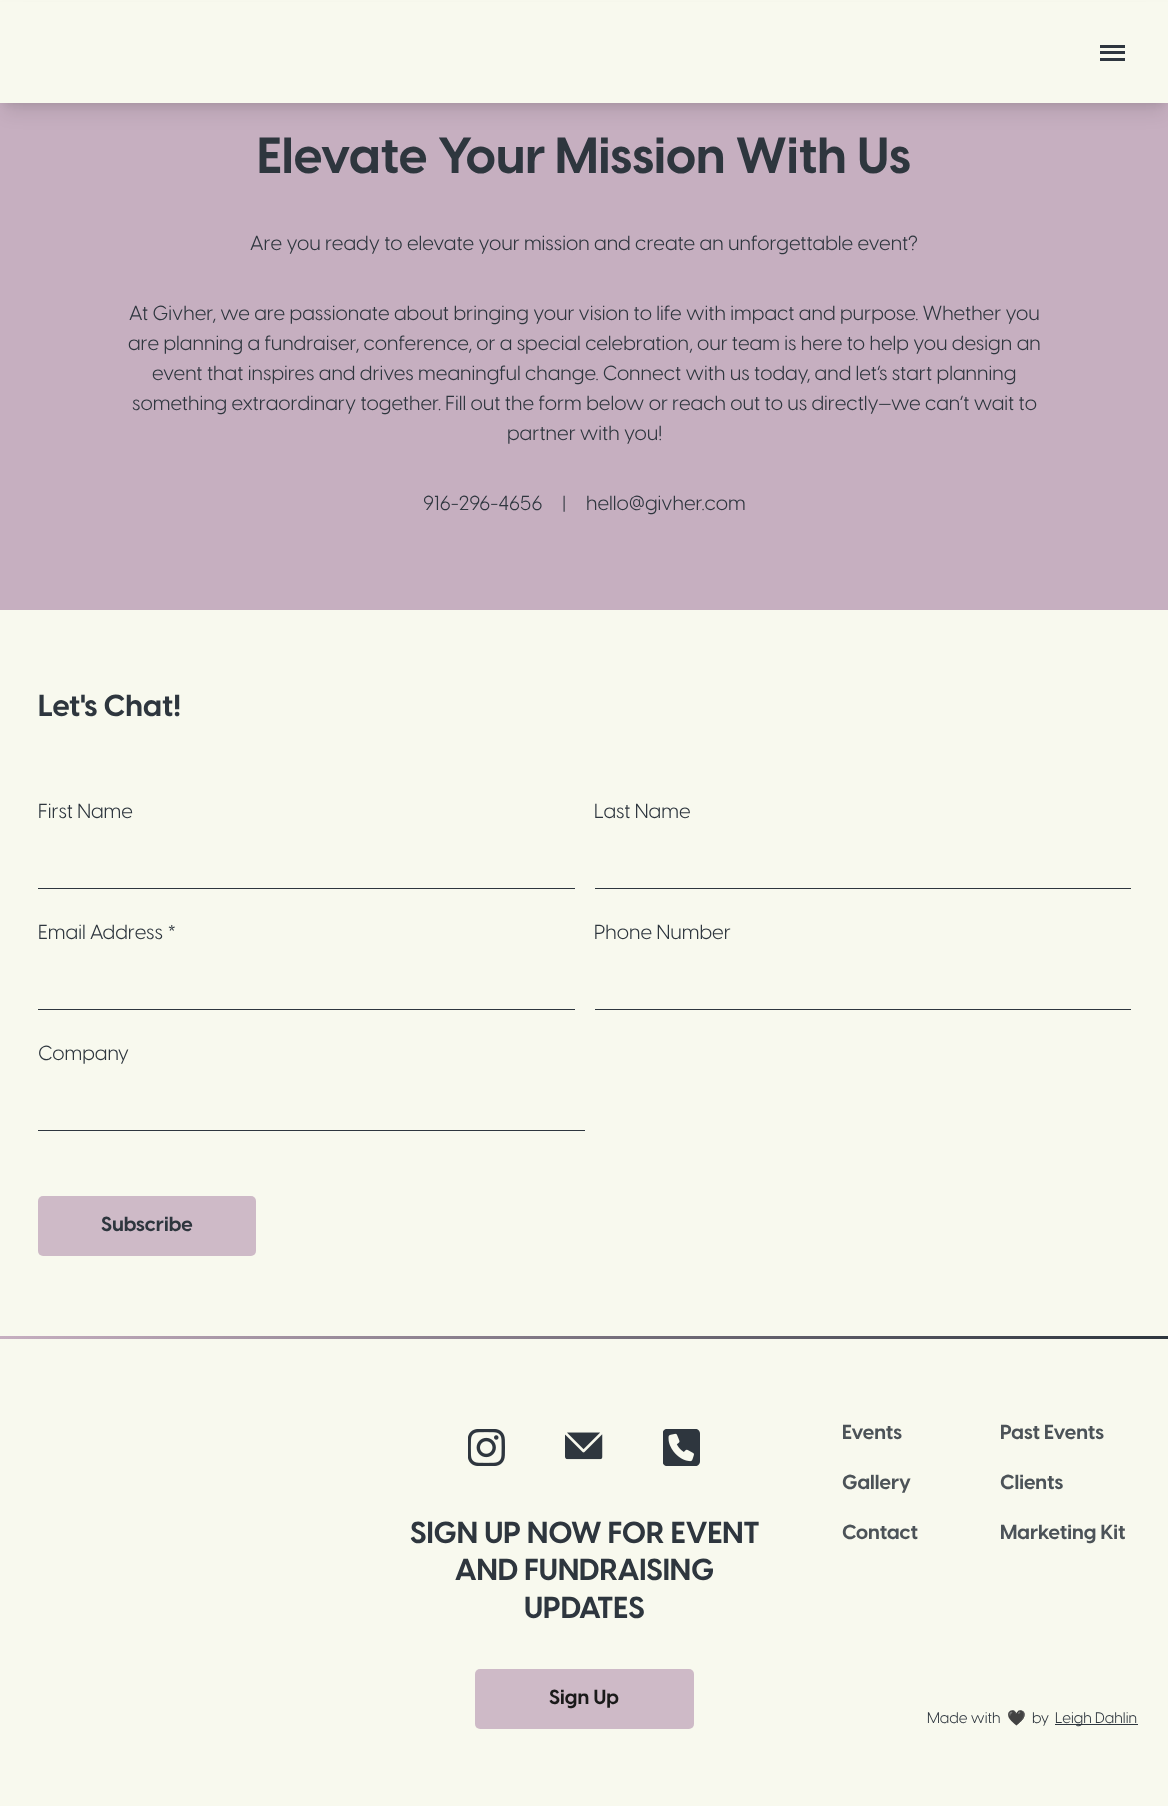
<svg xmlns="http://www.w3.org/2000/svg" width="1168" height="1806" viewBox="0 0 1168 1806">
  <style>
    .t1 { font: bold 50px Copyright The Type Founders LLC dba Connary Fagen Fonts; fill: #2e363e; }
    .t2 { font: 20px Copyright The Type Founders LLC dba Connary Fagen Fonts; fill: #2e363e; }
    .t3 { font: bold 30px Copyright The Type Founders LLC dba Connary Fagen Fonts; fill: #2e363e; }
    .t4 { font: bold 20px Copyright The Type Founders LLC dba Connary Fagen Fonts; fill: #2e363e; }
    .t5 { font: bold 20px Copyright The Type Founders LLC dba Connary Fagen Fonts; fill: #1a1a1a; }
    .t6 { font: bold 20px Copyright The Type Founders LLC dba Connary Fagen Fonts; fill: #4c5358; }
    .t7 { font: 15px Copyright The Type Founders LLC dba Connary Fagen Fonts; fill: #2e363e; }
    .t8 { font: 15px Noto Color Emoji; fill: #2e363e; }
  </style>
  <defs>
    <linearGradient id="g1" gradientUnits="userSpaceOnUse" x1="0" y1="1338" x2="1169" y2="1338"><stop offset="0" stop-color="#c6afc0"/><stop offset="1" stop-color="#2e363e"/></linearGradient>
  </defs>
  <rect width="100%" height="100%" fill="#f8f9ee"/>
  <rect x="0" y="103" width="1168" height="507" fill="#c6afc0"/>
  <rect x="5" y="10" width="1159" height="93" fill="#0000001a" filter="blur(4px)"/>
  <rect x="4" y="16" width="1161" height="95" fill="#0000001a" filter="blur(9.5px)"/>
  <rect x="0" y="2" width="1168" height="101" fill="#f8f9ee"/>
  <rect x="1100" y="45" width="25" height="3" fill="#2e363e"/>
  <rect x="1100" y="51" width="25" height="3" fill="#2e363e"/>
  <rect x="1100" y="58" width="25" height="3" fill="#2e363e"/>
  <text x="257" y="173" class="t1">Elevate Your Mission With Us</text>
  <text x="250" y="250" class="t2">Are you ready to elevate your mission and create an unforgettable event?</text>
  <text x="129" y="320" class="t2">At Givher, we are passionate about bringing your vision to life with impact and purpose. Whether you</text>
  <text x="128" y="350" class="t2">are planning a fundraiser, conference, or a special celebration, our team is here to help you design an</text>
  <text x="152" y="380" class="t2">event that inspires and drives meaningful change. Connect with us today, and let’s start planning</text>
  <text x="132" y="410" class="t2">something extraordinary together. Fill out the form below or reach out to us directly—we can’t wait to</text>
  <text x="507" y="440" class="t2">partner with you!</text>
  <text x="423" y="510" class="t2">916-296-4656</text>
  <text x="562" y="510" class="t2">|</text>
  <text x="586" y="510" class="t2">hello@givher.com</text>
  <text x="38" y="716" class="t3">Let's Chat!</text>
  <text x="38" y="818" class="t2">First Name</text>
  <rect x="38" y="888" width="537" height="1" fill="#2e363e"/>
  <text x="594" y="818" class="t2">Last Name</text>
  <rect x="595" y="888" width="536" height="1" fill="#2e363e"/>
  <text x="38" y="939" class="t2">Email Address *</text>
  <rect x="38" y="1009" width="537" height="1" fill="#2e363e"/>
  <text x="594" y="939" class="t2">Phone Number</text>
  <rect x="595" y="1009" width="536" height="1" fill="#2e363e"/>
  <text x="38" y="1060" class="t2">Company</text>
  <rect x="38" y="1130" width="547" height="1" fill="#2e363e"/>
  <rect x="38" y="1196" width="218" height="60" rx="5" fill="#cebac7"/>
  <text x="101" y="1231" class="t4">Subscribe</text>
  <rect x="0" y="1336" width="1168" height="3" fill="url(#g1)"/>
  <image x="468" y="1429" width="37" height="37" href="images/1.png"/>
  <image x="565" y="1432" width="38" height="28" href="images/2.png"/>
  <image x="663" y="1429" width="37" height="37" href="images/3.png"/>
  <text x="410" y="1543" class="t3">SIGN UP NOW FOR EVENT</text>
  <text x="455" y="1580" class="t3">AND FUNDRAISING</text>
  <text x="524" y="1618" class="t3">UPDATES</text>
  <rect x="475" y="1669" width="219" height="60" rx="5" fill="#cebac7"/>
  <text x="549" y="1704" class="t5">Sign Up</text>
  <text x="842" y="1439" class="t6">Events</text>
  <text x="1000" y="1439" class="t6">Past Events</text>
  <text x="842" y="1489" class="t6">Gallery</text>
  <text x="1000" y="1489" class="t6">Clients</text>
  <text x="842" y="1539" class="t6">Contact</text>
  <text x="1000" y="1539" class="t6">Marketing Kit</text>
  <text x="927" y="1723" class="t7">Made with</text>
  <text x="1007" y="1723" class="t8">🖤</text>
  <text x="1032" y="1723" class="t7">by</text>
  <rect x="1055" y="1724" width="83" height="1" fill="#2e363e"/>
  <text x="1055" y="1723" class="t7">Leigh Dahlin</text>
</svg>
